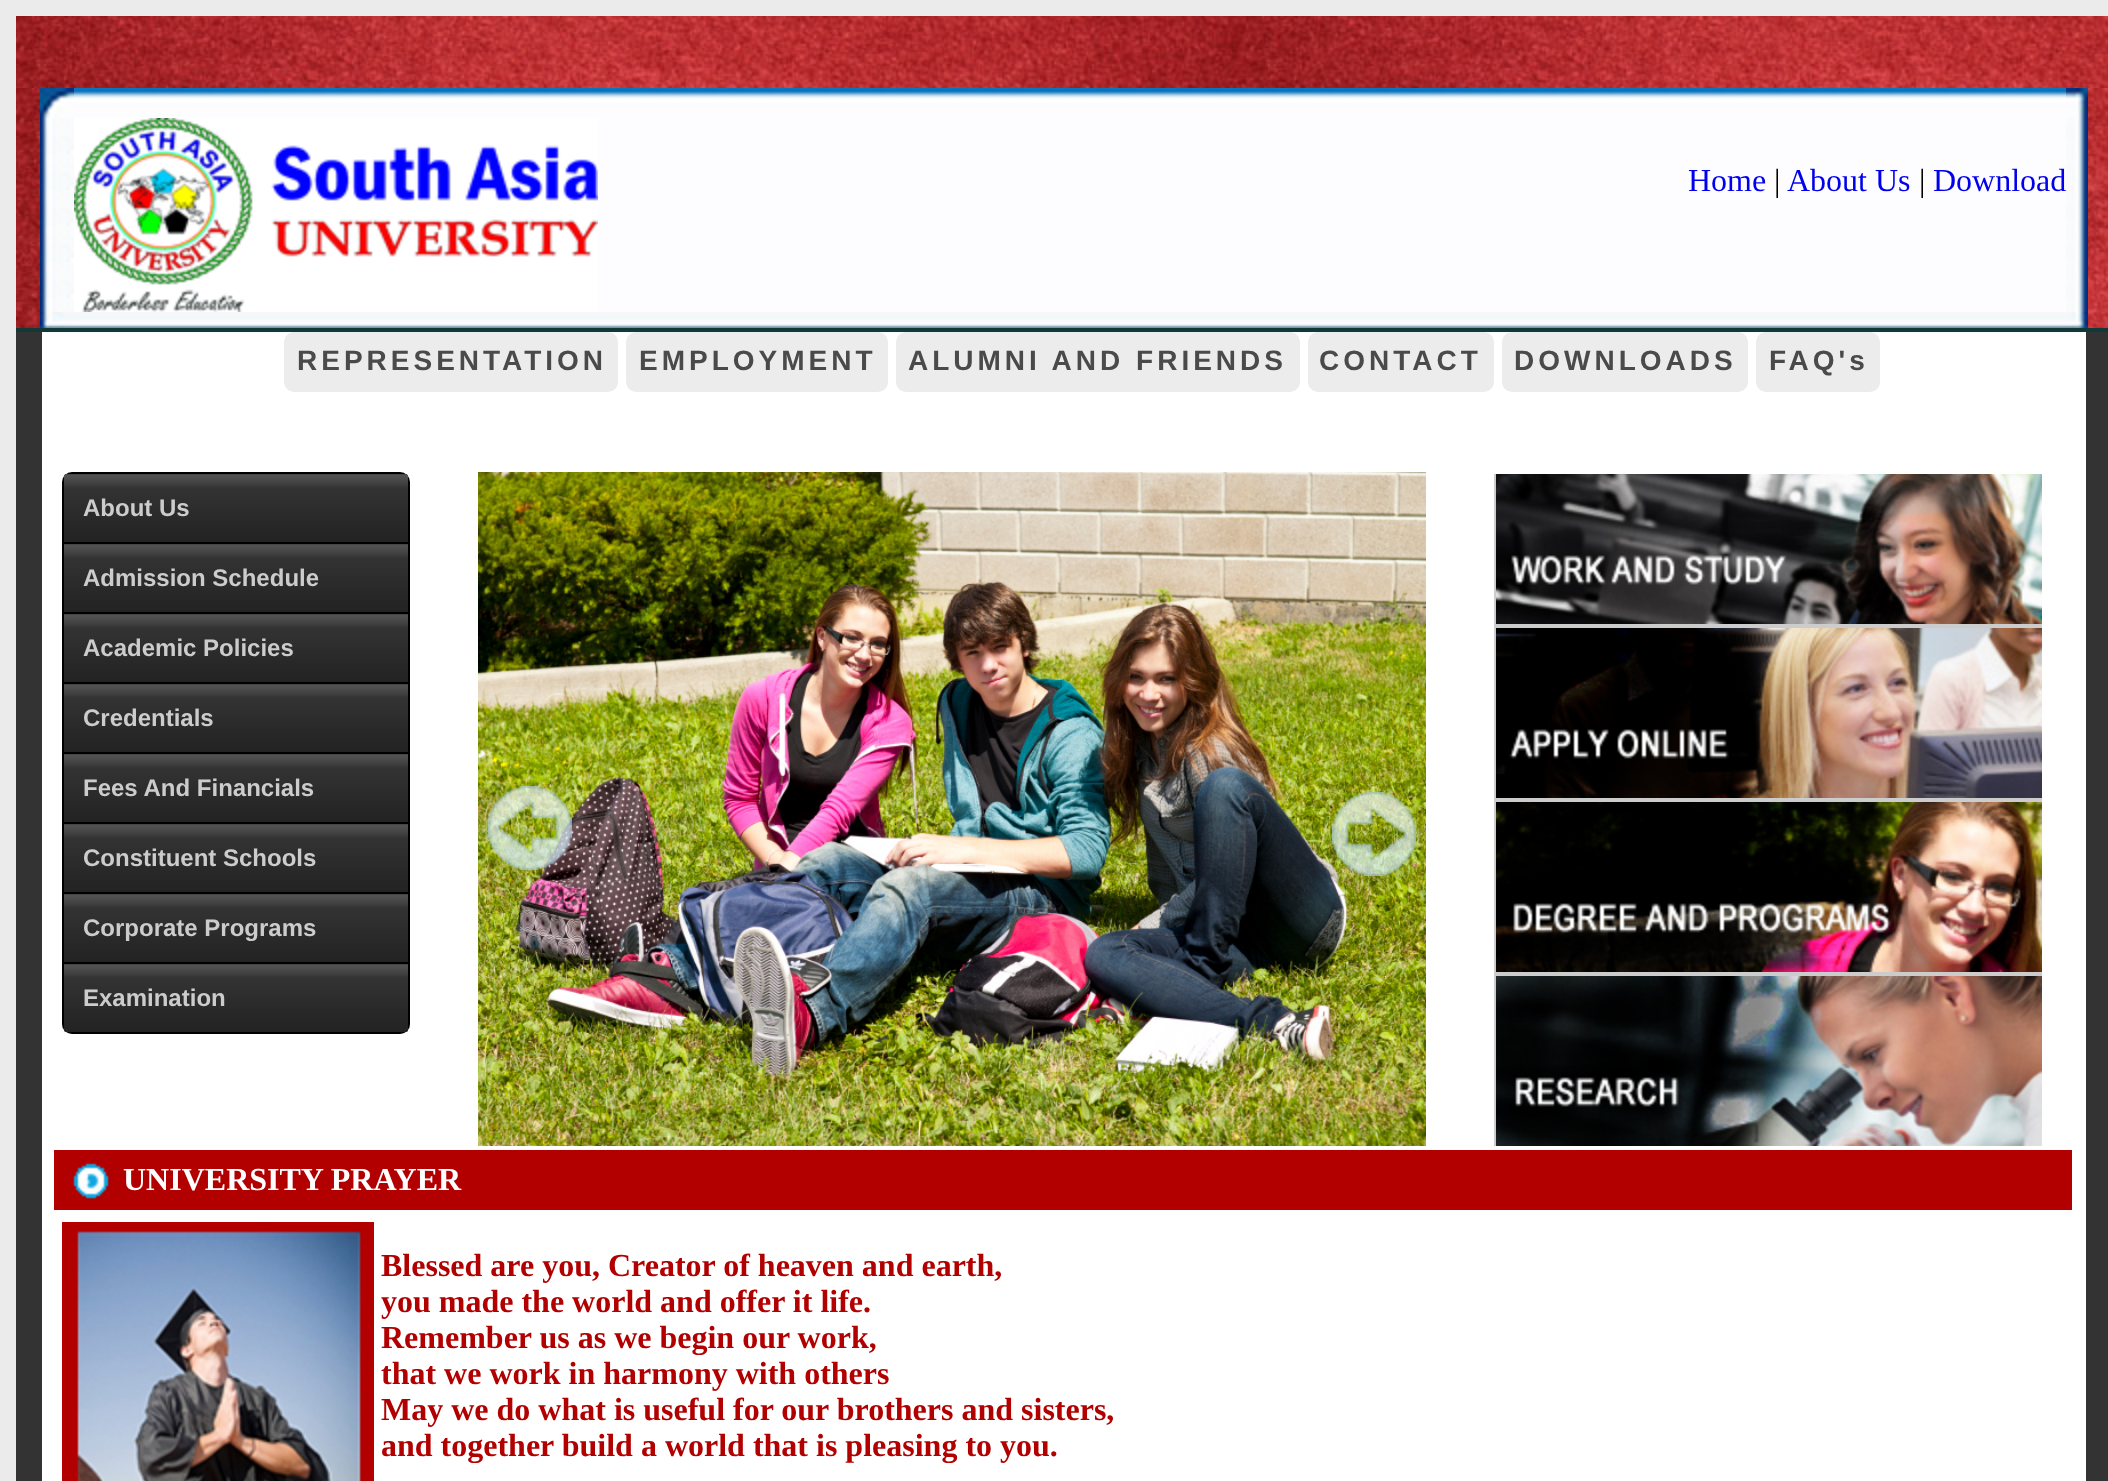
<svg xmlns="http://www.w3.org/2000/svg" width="2108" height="1481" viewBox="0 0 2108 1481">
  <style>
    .t1 { font: 32px Liberation Serif; fill: #00e; }
    .t2 { font: 32px Liberation Serif; fill: #000; }
    .t3 { font: bold 28px Liberation Sans; letter-spacing: 4px; fill: #4a4a4a; }
    .t4 { font: bold 24px Liberation Sans; fill: #ccc; }
    .t5 { font: bold 32px Liberation Serif; fill: #fff; }
    .t6 { font: bold 32px Liberation Serif; fill: #b20000; }
  </style>
  <defs>
    <clipPath id="clip1"><rect x="1494" y="474" width="548" height="672"/></clipPath>
  </defs>
  <rect width="100%" height="100%" fill="#ebebeb"/>
  <image x="16" y="16" width="2092" height="72" href="images/1.png"/>
  <image x="16" y="88" width="2092" height="240" href="images/2.png"/>
  <image x="40" y="88" width="34" height="30" href="images/3.png"/>
  <image x="74" y="88" width="1992" height="30" href="images/4.png"/>
  <image x="2066" y="88" width="22" height="30" href="images/5.png"/>
  <image x="40" y="118" width="34" height="194" href="images/6.png"/>
  <rect x="598" y="118" width="1468" height="194" fill="#fdfdff"/>
  <image x="74" y="118" width="524" height="194" href="images/7.png"/>
  <text x="1688" y="191" class="t1">Home</text>
  <text x="1774" y="191" class="t2">|</text>
  <text x="1787" y="191" class="t1">About Us</text>
  <text x="1919" y="191" class="t2">|</text>
  <text x="1933" y="191" class="t1">Download</text>
  <image x="2066" y="118" width="22" height="194" href="images/8.png"/>
  <image x="40" y="312" width="34" height="16" href="images/9.png"/>
  <image x="74" y="312" width="1992" height="16" href="images/10.png"/>
  <image x="2066" y="312" width="22" height="16" href="images/11.png"/>
  <rect x="16" y="328" width="2092" height="4" fill="#113938"/>
  <rect x="16" y="332" width="2092" height="1149" fill="#333"/>
  <rect x="42" y="332" width="2044" height="1149" fill="#fff"/>
  <rect x="284" y="332" width="334" height="60" rx="10" fill="#ececec"/>
  <text x="297" y="370" class="t3">REPRESENTATION</text>
  <rect x="626" y="332" width="262" height="60" rx="10" fill="#ececec"/>
  <text x="639" y="370" class="t3">EMPLOYMENT</text>
  <rect x="896" y="332" width="404" height="60" rx="10" fill="#ececec"/>
  <text x="908" y="370" class="t3">ALUMNI AND FRIENDS</text>
  <rect x="1308" y="332" width="186" height="60" rx="10" fill="#ececec"/>
  <text x="1319" y="370" class="t3">CONTACT</text>
  <rect x="1502" y="332" width="246" height="60" rx="10" fill="#ececec"/>
  <text x="1514" y="370" class="t3">DOWNLOADS</text>
  <rect x="1756" y="332" width="124" height="60" rx="10" fill="#ececec"/>
  <text x="1769" y="370" class="t3">FAQ's</text>
  <rect x="62" y="472" width="348" height="562" rx="10" fill="#000"/>
  <image x="62" y="1025" width="348" height="9" href="images/12.png"/>
  <path d="M66 474H406C407 474 408 475 408 476V542H64V476C64 475 65 474 66 474Z" fill="#333"/>
  <image x="64" y="474" width="344" height="68" href="images/13.png"/>
  <text x="83" y="516" class="t4">About Us</text>
  <rect x="64" y="544" width="344" height="68" fill="#333"/>
  <image x="64" y="544" width="344" height="68" href="images/14.png"/>
  <text x="83" y="586" class="t4">Admission Schedule</text>
  <rect x="64" y="614" width="344" height="68" fill="#333"/>
  <image x="64" y="614" width="344" height="68" href="images/14.png"/>
  <text x="83" y="656" class="t4">Academic Policies</text>
  <rect x="64" y="684" width="344" height="68" fill="#333"/>
  <image x="64" y="684" width="344" height="68" href="images/14.png"/>
  <text x="83" y="726" class="t4">Credentials</text>
  <rect x="64" y="754" width="344" height="68" fill="#333"/>
  <image x="64" y="754" width="344" height="68" href="images/14.png"/>
  <text x="83" y="796" class="t4">Fees And Financials</text>
  <rect x="64" y="824" width="344" height="68" fill="#333"/>
  <image x="64" y="824" width="344" height="68" href="images/14.png"/>
  <text x="83" y="866" class="t4">Constituent Schools</text>
  <rect x="64" y="894" width="344" height="68" fill="#333"/>
  <image x="64" y="894" width="344" height="68" href="images/14.png"/>
  <text x="83" y="936" class="t4">Corporate Programs</text>
  <path d="M64 964H408V1030C408 1031 407 1032 406 1032H66C65 1032 64 1031 64 1030Z" fill="#333"/>
  <image x="64" y="964" width="344" height="68" href="images/15.png"/>
  <text x="83" y="1006" class="t4">Examination</text>
  <image x="478" y="472" width="948" height="674" href="images/16.png"/>
  <image x="488" y="786" width="84" height="84" href="images/17.png"/>
  <image x="1332" y="792" width="84" height="84" href="images/18.png"/>
  <g clip-path="url(#clip1)">
    <rect x="1495" y="453" width="548" height="172" fill="none" stroke="#ccc" stroke-width="2"/>
  </g>
  <image x="1496" y="474" width="546" height="150" href="images/19.png"/>
  <g clip-path="url(#clip1)">
    <rect x="1495" y="627" width="548" height="172" fill="none" stroke="#ccc" stroke-width="2"/>
  </g>
  <image x="1496" y="628" width="546" height="170" href="images/20.png"/>
  <g clip-path="url(#clip1)">
    <rect x="1495" y="801" width="548" height="172" fill="none" stroke="#ccc" stroke-width="2"/>
  </g>
  <image x="1496" y="802" width="546" height="170" href="images/21.png"/>
  <g clip-path="url(#clip1)">
    <rect x="1495" y="975" width="548" height="172" fill="none" stroke="#ccc" stroke-width="2"/>
  </g>
  <image x="1496" y="976" width="546" height="170" href="images/22.png"/>
  <rect x="54" y="1150" width="2018" height="60" fill="#b20000"/>
  <image x="73" y="1163" width="36" height="36" href="images/23.png"/>
  <text x="123" y="1190" class="t5">UNIVERSITY PRAYER</text>
  <image x="62" y="1222" width="312" height="259" href="images/24.png"/>
  <text x="381" y="1276" class="t6">Blessed are you, Creator of heaven and earth,</text>
  <text x="381" y="1312" class="t6">you made the world and offer it life.</text>
  <text x="381" y="1348" class="t6">Remember us as we begin our work,</text>
  <text x="381" y="1384" class="t6">that we work in harmony with others</text>
  <text x="381" y="1420" class="t6">May we do what is useful for our brothers and sisters,</text>
  <text x="381" y="1456" class="t6">and together build a world that is pleasing to you.</text>
</svg>
